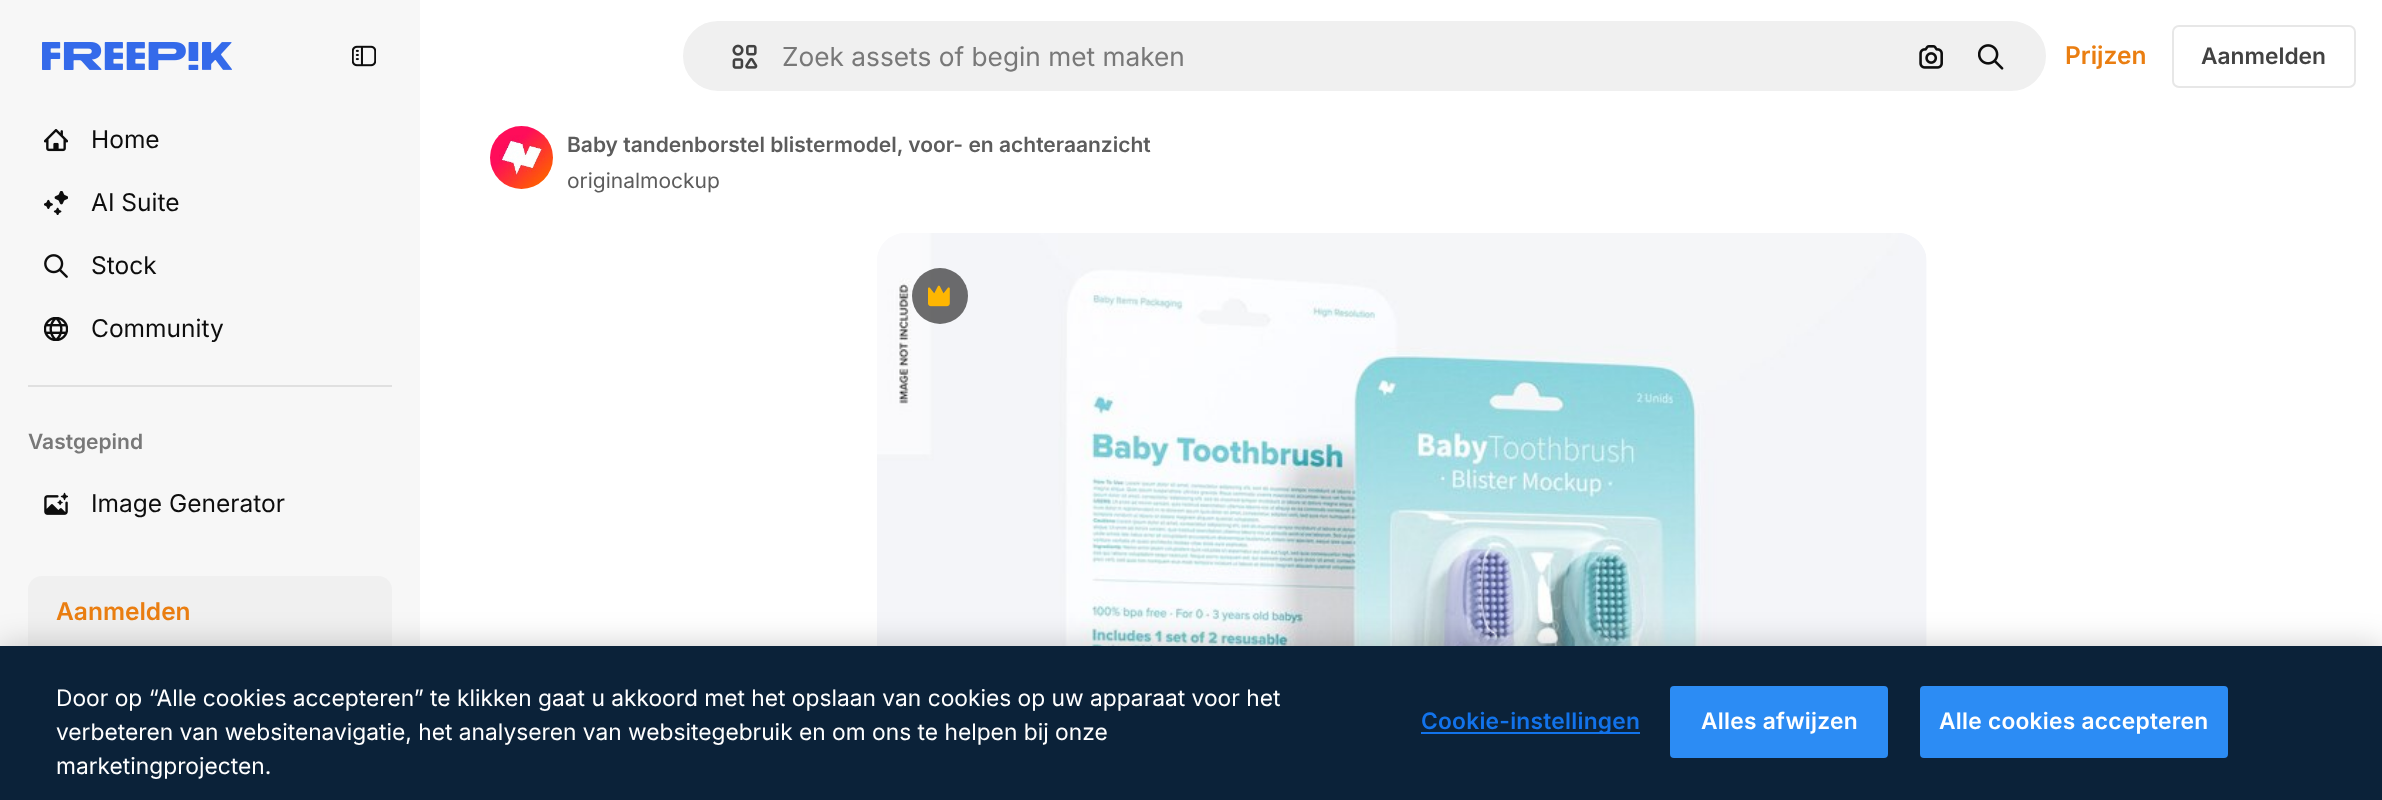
<svg xmlns="http://www.w3.org/2000/svg" width="2382" height="800" viewBox="0 0 2382 800">
  <style>
    .t1 { font: 24.5px Inter; fill: #0d0d0d; }
    .t2 { font: 600 21px Inter; fill: #787878; }
    .t3 { font: 600 24.5px Inter; fill: #ea7e11; }
    .t4 { font: 26.25px Inter; fill: #787878; }
    .t5 { font: 600 22.75px Inter; fill: #424242; }
    .t6 { font: 600 21px Inter; fill: #5c5c5c; }
    .t7 { font: 21px Inter; fill: #5c5c5c; }
    .t8 { font: 22.75px Inter; fill: #fff; }
    .t9 { font: 600 22.75px Inter; letter-spacing: 0.25px; fill: #1273eb; }
    .t10 { font: 600 22.75px Inter; letter-spacing: 0.25px; fill: #fff; }
  </style>
  <rect width="100%" height="100%" fill="#fff"/>
  <rect x="0" y="0" width="420" height="646" fill="#f7f7f7"/>
  <image x="42" y="42" width="190" height="28" href="images/1.png"/>
  <image x="352" y="45" width="24" height="22" href="images/2.png"/>
  <image x="44" y="129" width="24" height="23" href="images/3.png"/>
  <text x="91" y="148" class="t1">Home</text>
  <image x="44" y="191" width="24" height="24" href="images/4.png"/>
  <text x="91" y="211" class="t1">AI Suite</text>
  <image x="44" y="254" width="24" height="24" href="images/5.png"/>
  <text x="91" y="274" class="t1">Stock</text>
  <image x="44" y="317" width="24" height="24" href="images/6.png"/>
  <text x="91" y="337" class="t1">Community</text>
  <rect x="28" y="385" width="364" height="2" fill="#e0e0e0"/>
  <text x="28" y="449" class="t2">Vastgepind</text>
  <image x="44" y="492" width="24" height="23" href="images/7.png"/>
  <text x="91" y="512" class="t1">Image Generator</text>
  <rect x="28" y="576" width="364" height="114" rx="14" fill="#f0f0f0"/>
  <text x="56" y="620" class="t3">Aanmelden</text>
  <rect x="682" y="20" width="1365" height="72" rx="36" fill="#f0f0f0" stroke="#fff" stroke-width="2"/>
  <image x="732" y="44" width="26" height="25" href="images/8.png"/>
  <text x="782" y="66" class="t4">Zoek assets of begin met maken</text>
  <image x="1919" y="45" width="24" height="24" href="images/9.png"/>
  <image x="1978" y="44" width="26" height="26" href="images/10.png"/>
  <text x="2065" y="64" class="t3">Prijzen</text>
  <rect x="2173" y="26" width="182" height="61" rx="6" fill="none" stroke="#e7e7e7" stroke-width="2"/>
  <text x="2201" y="64" class="t5">Aanmelden</text>
  <image x="490" y="126" width="63" height="63" href="images/11.png"/>
  <text x="567" y="152" class="t6">Baby tandenborstel blistermodel, voor- en achteraanzicht</text>
  <text x="567" y="188" class="t7">originalmockup</text>
  <image x="877" y="233" width="1050" height="413" href="images/12.png"/>
  <circle cx="940" cy="296" r="28" fill="#0d0d0d99"/>
  <image x="928" y="285" width="22" height="22" href="images/13.png"/>
  <rect x="0" y="646" width="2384" height="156" fill="#00000033" filter="blur(16px)"/>
  <rect x="0" y="646" width="2382" height="154" fill="#0b2239"/>
  <text x="56" y="706" class="t8">Door op “Alle cookies accepteren” te klikken gaat u akkoord met het opslaan van cookies op uw apparaat voor het</text>
  <text x="56" y="740" class="t8">verbeteren van websitenavigatie, het analyseren van websitegebruik en om ons te helpen bij onze</text>
  <text x="56" y="774" class="t8">marketingprojecten.</text>
  <rect x="1421" y="732" width="219" height="2" fill="#1273eb"/>
  <text x="1421" y="729" class="t9">Cookie-instellingen</text>
  <rect x="1671" y="687" width="216" height="70" rx="3" fill="#2c8cf4" stroke="#2c8cf4" stroke-width="2"/>
  <text x="1701" y="729" class="t10">Alles afwijzen</text>
  <rect x="1921" y="687" width="306" height="70" rx="3" fill="#2c8cf4" stroke="#2c8cf4" stroke-width="2"/>
  <text x="1939" y="729" class="t10">Alle cookies accepteren</text>
</svg>
